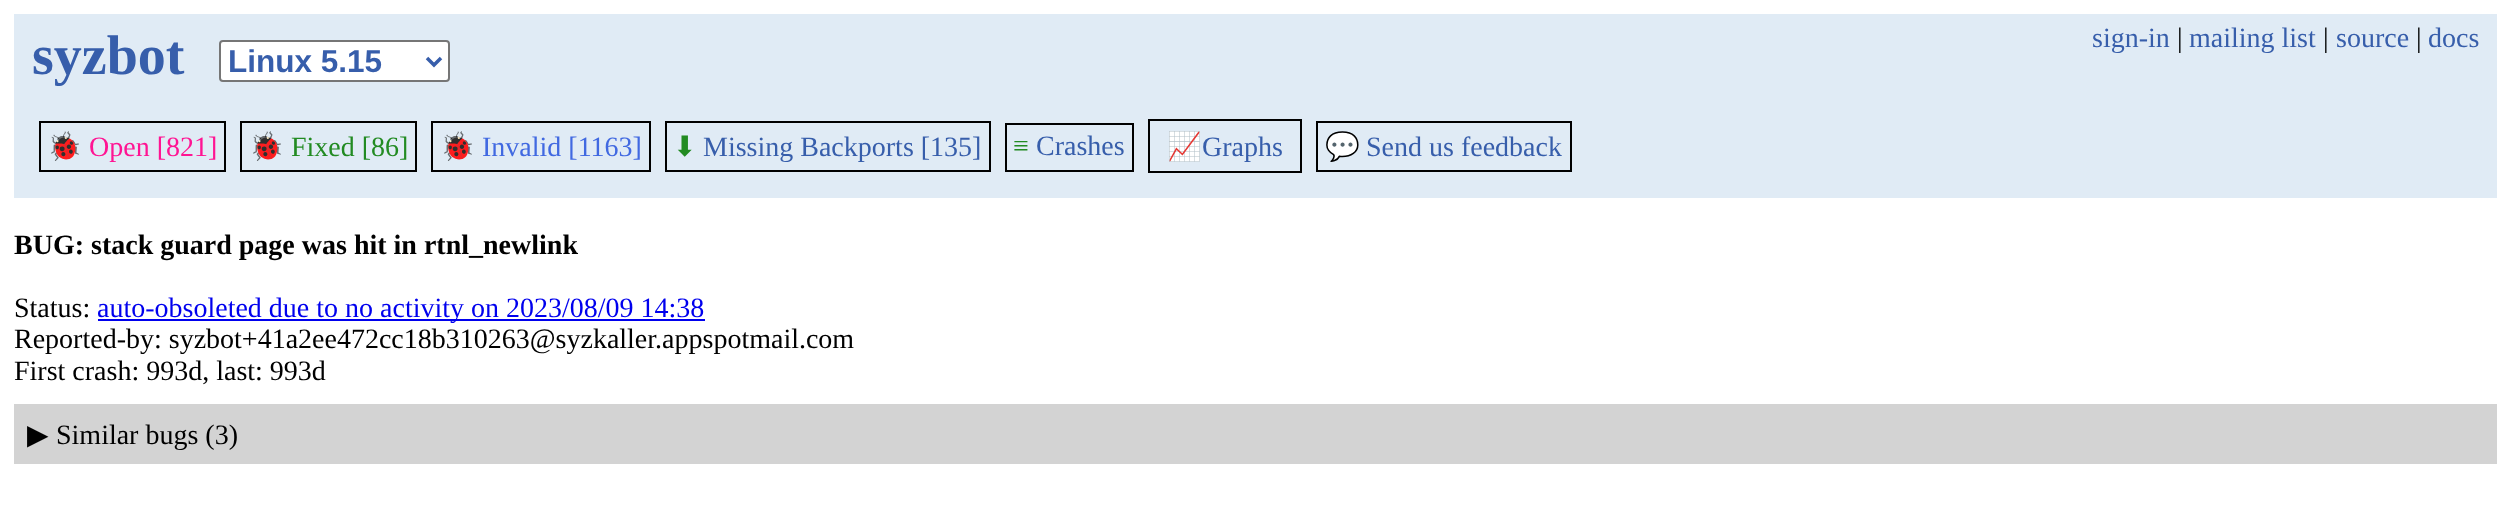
<svg xmlns="http://www.w3.org/2000/svg" width="2510" height="522" viewBox="0 0 2510 522">
  <style>
    .t1 { font: bold 56px Liberation Serif; fill: #375eab; }
    .t2 { font: bold 31.5px Liberation Sans; fill: #375eab; }
    .t3 { font: 28px Liberation Serif; fill: #375eab; }
    .t4 { font: 28px Liberation Serif; fill: #000; }
    .t5 { font: 28px Noto Color Emoji; fill: #ff1493; }
    .t6 { font: 28px Liberation Serif; fill: #ff1493; }
    .t7 { font: 28px Noto Color Emoji; fill: #228b22; }
    .t8 { font: 28px Liberation Serif; fill: #228b22; }
    .t9 { font: 28px Noto Color Emoji; fill: #4169e1; }
    .t10 { font: 28px Liberation Serif; fill: #4169e1; }
    .t11 { font: 28px DejaVu Sans; fill: #228b22; }
    .t12 { font: 28px Noto Color Emoji; fill: #ff8c00; }
    .t13 { font: bold 28px Liberation Serif; fill: #000; }
    .t14 { font: 28px Liberation Serif; fill: #00e; }
    .t15 { font: 28px DejaVu Sans; fill: #000; }
  </style>
  <rect width="100%" height="100%" fill="#fff"/>
  <rect x="14" y="14" width="2483" height="184" fill="#e0ebf5"/>
  <text x="32" y="74" class="t1">syzbot</text>
  <rect x="220" y="41" width="229" height="40" rx="3" fill="#fff" stroke="#767676" stroke-width="2"/>
  <path d="M427 58L434 65L441 58" fill="none" stroke="#375eab" stroke-width="3.5"/>
  <text x="228" y="72" class="t2">Linux 5.15</text>
  <text x="2092" y="47" class="t3">sign-in</text>
  <text x="2177" y="47" class="t4">|</text>
  <text x="2189" y="47" class="t3">mailing list</text>
  <text x="2323" y="47" class="t4">|</text>
  <text x="2336" y="47" class="t3">source</text>
  <text x="2416" y="47" class="t4">|</text>
  <text x="2428" y="47" class="t3">docs</text>
  <rect x="40" y="122" width="185" height="49" fill="none" stroke="#000" stroke-width="2"/>
  <text x="47" y="156" class="t5">🐞</text>
  <text x="89" y="156" class="t6">Open [821]</text>
  <rect x="241" y="122" width="175" height="49" fill="none" stroke="#000" stroke-width="2"/>
  <text x="249" y="156" class="t7">🐞</text>
  <text x="291" y="156" class="t8">Fixed [86]</text>
  <rect x="432" y="122" width="218" height="49" fill="none" stroke="#000" stroke-width="2"/>
  <text x="440" y="156" class="t9">🐞</text>
  <text x="482" y="156" class="t10">Invalid [1163]</text>
  <rect x="666" y="122" width="324" height="49" fill="none" stroke="#000" stroke-width="2"/>
  <text x="673" y="156" class="t11">⬇</text>
  <text x="703" y="156" class="t3">Missing Backports [135]</text>
  <rect x="1006" y="124" width="127" height="47" fill="none" stroke="#000" stroke-width="2"/>
  <text x="1013" y="155" class="t8">≡</text>
  <text x="1036" y="155" class="t3">Crashes</text>
  <rect x="1149" y="120" width="152" height="52" fill="none" stroke="#000" stroke-width="2"/>
  <text x="1167" y="156" class="t12">📈</text>
  <text x="1202" y="156" class="t3">Graphs</text>
  <rect x="1317" y="122" width="254" height="49" fill="none" stroke="#000" stroke-width="2"/>
  <text x="1325" y="156" class="t7">💬</text>
  <text x="1366" y="156" class="t3">Send us feedback</text>
  <text x="14" y="254" class="t13">BUG: stack guard page was hit in rtnl_newlink</text>
  <text x="14" y="317" class="t4">Status:</text>
  <rect x="98" y="319" width="607" height="2" fill="#00e"/>
  <text x="97" y="317" class="t14">auto-obsoleted due to no activity on 2023/08/09 14:38</text>
  <text x="14" y="348" class="t4">Reported-by: syzbot+41a2ee472cc18b310263@syzkaller.appspotmail.com</text>
  <text x="14" y="380" class="t4">First crash: 993d, last: 993d</text>
  <rect x="15" y="405" width="2481" height="58" fill="none" stroke="#d3d3d3" stroke-width="2"/>
  <rect x="16" y="406" width="2479" height="56" fill="#d3d3d3"/>
  <text x="27" y="444" class="t15">▶</text>
  <text x="56" y="444" class="t4">Similar bugs (3)</text>
</svg>
